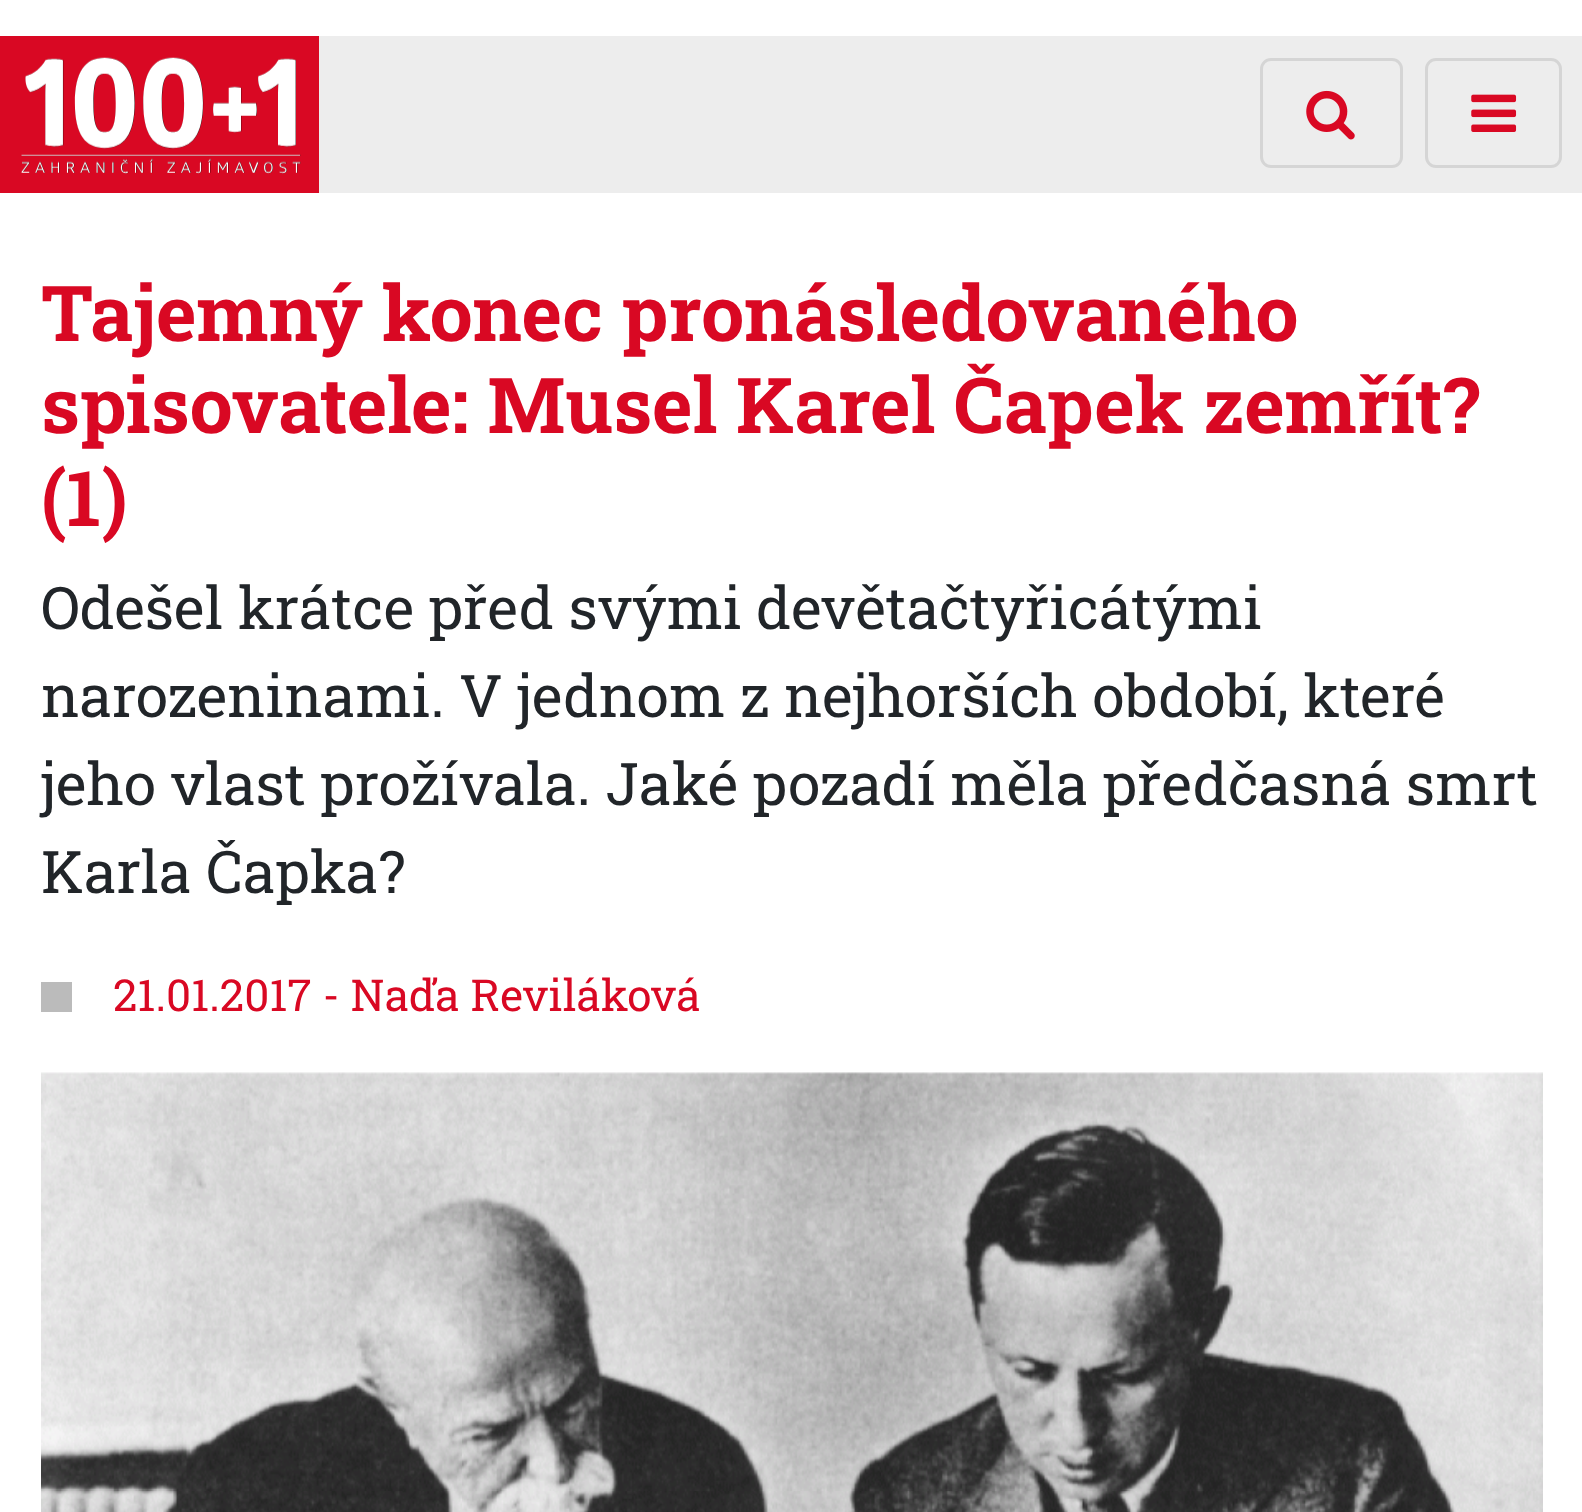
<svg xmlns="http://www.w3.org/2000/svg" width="1582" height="1512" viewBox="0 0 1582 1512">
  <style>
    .t1 { font: bold 77px Roboto Slab; fill: #d90823; }
    .t2 { font: 58.7px Roboto Slab; fill: #212529; }
    .t3 { font: 44px Roboto Slab; fill: #d90823; }
  </style>
  <rect width="100%" height="100%" fill="#fff"/>
  <rect x="0" y="36" width="319" height="157" fill="#d90823"/>
  <image x="21" y="57" width="280" height="117" href="images/1.png"/>
  <rect x="319" y="36" width="1263" height="157" fill="#ededed"/>
  <rect x="1261.5" y="59.5" width="140" height="107" rx="9.5" fill="none" stroke="#d5d5d5" stroke-width="3"/>
  <image x="1306" y="90" width="49" height="50" href="images/2.png"/>
  <rect x="1426.5" y="59.5" width="134" height="107" rx="9.5" fill="none" stroke="#d5d5d5" stroke-width="3"/>
  <image x="1471" y="94" width="46" height="38" href="images/3.png"/>
  <text x="41" y="341" class="t1">Tajemný konec pronásledovaného</text>
  <text x="41" y="433" class="t1">spisovatele: Musel Karel Čapek zemřít?</text>
  <text x="41" y="526" class="t1">(1)</text>
  <text x="41" y="629" class="t2">Odešel krátce před svými devětačtyřicátými</text>
  <text x="41" y="717" class="t2">narozeninami. V jednom z nejhorších období, které</text>
  <text x="41" y="805" class="t2">jeho vlast prožívala. Jaké pozadí měla předčasná smrt</text>
  <text x="41" y="893" class="t2">Karla Čapka?</text>
  <rect x="41" y="982" width="31" height="30" fill="#bbb"/>
  <text x="113" y="1011" class="t3">21.01.2017 - Naďa Reviláková</text>
  <image x="41" y="1072" width="1502" height="440" href="images/4.png"/>
</svg>
